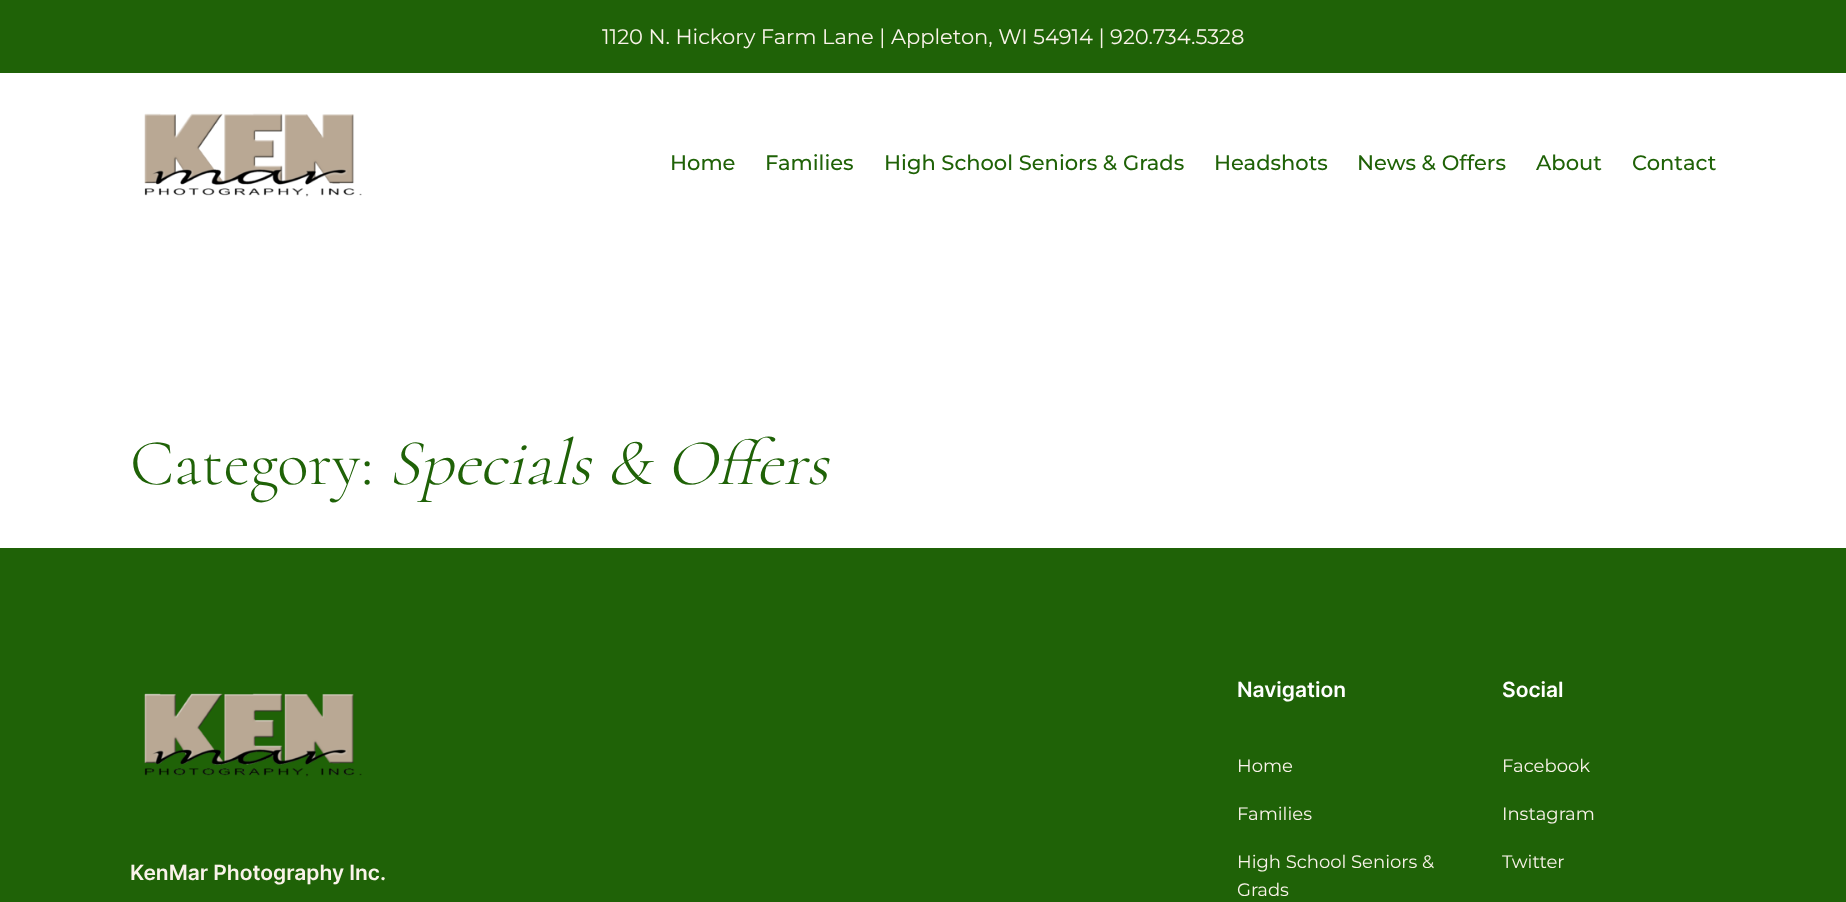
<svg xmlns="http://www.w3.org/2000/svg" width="1846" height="902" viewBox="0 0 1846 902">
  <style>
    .t1 { font: 21px Montserrat; fill: #faf3ea; }
    .t2 { font: 500 21px Montserrat; fill: #1f6207; }
    .t3 { font: 300 65.5px Cormorant; fill: #1f6207; }
    .t4 { font: italic 300 65.5px Cormorant; fill: #1f6207; }
    .t5 { font: 600 21px Inter; fill: #faf3ea; }
    .t6 { font: 600 21px Inter; fill: #fff; }
    .t7 { font: 18px Montserrat; fill: #faf3ea; }
  </style>
  <rect width="100%" height="100%" fill="#fff"/>
  <rect x="0" y="0" width="1846" height="73" fill="#1f6207"/>
  <text x="602" y="44" class="t1">1120 N. Hickory Farm Lane | Appleton, WI 54914 | 920.734.5328</text>
  <image x="144" y="113" width="218" height="84" href="images/1.png"/>
  <text x="670" y="170" class="t2">Home</text>
  <text x="765" y="170" class="t2">Families</text>
  <text x="884" y="170" class="t2">High School Seniors &amp; Grads</text>
  <text x="1214" y="170" class="t2">Headshots</text>
  <text x="1357" y="170" class="t2">News &amp; Offers</text>
  <text x="1536" y="170" class="t2">About</text>
  <text x="1632" y="170" class="t2">Contact</text>
  <text x="130" y="484" class="t3">Category:</text>
  <text x="388" y="484" class="t4">Specials &amp; Offers</text>
  <rect x="0" y="548" width="1846" height="354" fill="#1f6207"/>
  <image x="144" y="693" width="218" height="84" href="images/2.png"/>
  <text x="130" y="880" class="t5">KenMar Photography Inc.</text>
  <text x="1237" y="697" class="t6">Navigation</text>
  <text x="1237" y="772" class="t7">Home</text>
  <text x="1237" y="820" class="t7">Families</text>
  <text x="1237" y="868" class="t7">High School Seniors &amp;</text>
  <text x="1237" y="896" class="t7">Grads</text>
  <text x="1502" y="697" class="t6">Social</text>
  <text x="1502" y="772" class="t7">Facebook</text>
  <text x="1502" y="820" class="t7">Instagram</text>
  <text x="1502" y="868" class="t7">Twitter</text>
</svg>
